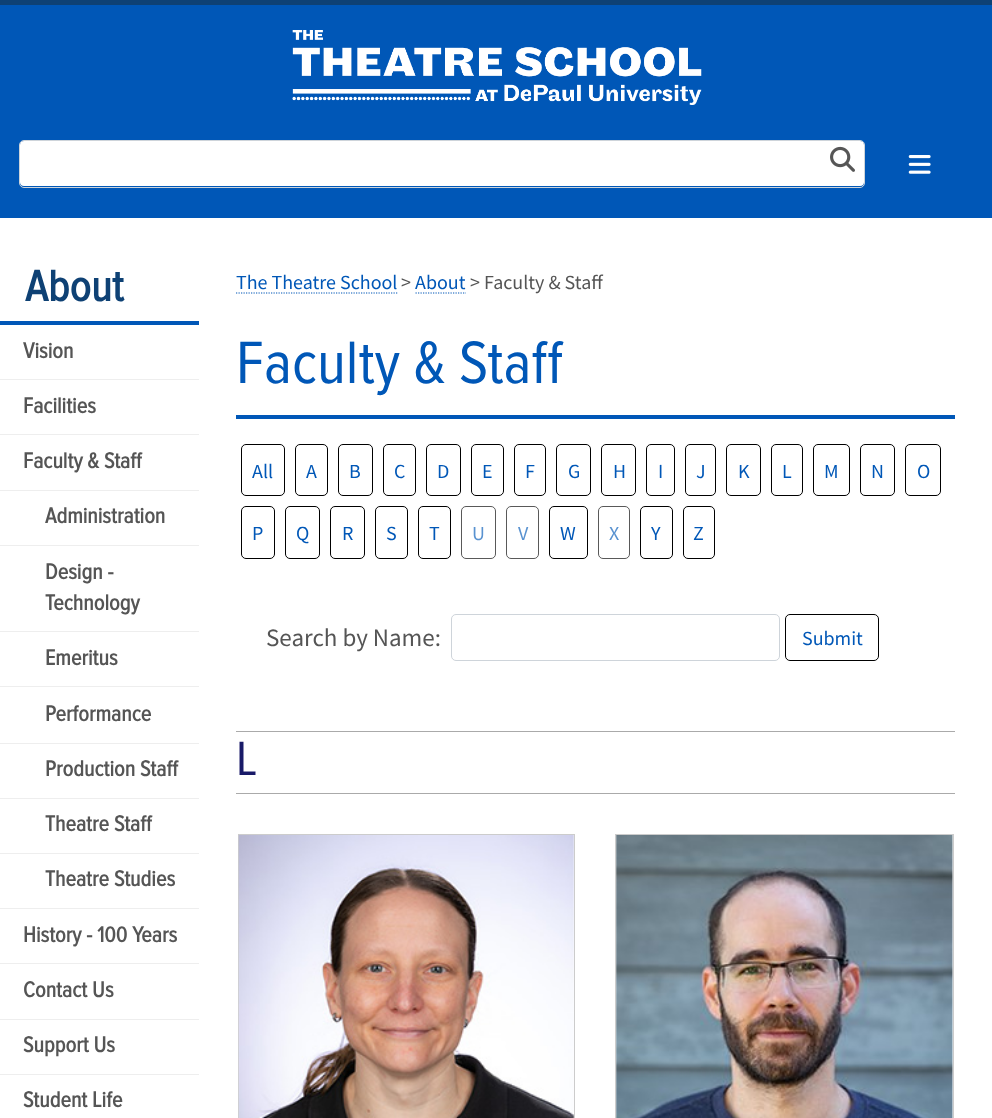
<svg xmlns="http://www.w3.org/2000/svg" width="992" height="1118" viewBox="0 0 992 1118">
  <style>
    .t1 { font: bold 45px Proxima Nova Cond; fill: #0e4174; }
    .t2 { font: bold 22.5px Proxima Nova Cond; fill: #555; }
    .t3 { font: 20px Source Sans Pro; fill: #0057b7; }
    .t4 { font: 20px Source Sans Pro; fill: #555; }
    .t5 { font: 62px Proxima Nova Cond; fill: #0057b7; }
    .t6 { font: 20px Source Sans Pro; fill: #5992d0; }
    .t7 { font: 25px Source Sans Pro; fill: #555; }
    .t8 { font: 50px Proxima Nova Cond; fill: #191a68; }
  </style>
  <rect width="100%" height="100%" fill="#fff"/>
  <rect x="0" y="0" width="992" height="5" fill="#0e4174"/>
  <rect x="0" y="5" width="992" height="213" fill="#0057b7"/>
  <image x="292" y="30" width="410" height="75" href="images/1.png"/>
  <rect x="20" y="141" width="844" height="45" rx="4" fill="#fff"/>
  <rect x="19.5" y="140.5" width="845" height="47" rx="4.5" fill="none" stroke="#ced4da"/>
  <image x="830" y="146" width="25" height="26" href="images/2.png"/>
  <image x="908" y="155" width="23" height="19" href="images/3.png"/>
  <text x="25" y="301" class="t1">About</text>
  <rect x="0" y="321" width="199" height="4" fill="#0057b7"/>
  <rect x="0" y="379" width="199" height="1" fill="#eee"/>
  <text x="23" y="358" class="t2">Vision</text>
  <rect x="0" y="434" width="199" height="1" fill="#eee"/>
  <text x="23" y="413" class="t2">Facilities</text>
  <rect x="0" y="490" width="199" height="1" fill="#eee"/>
  <text x="23" y="468" class="t2">Faculty &amp; Staff</text>
  <rect x="0" y="545" width="199" height="1" fill="#eee"/>
  <text x="45" y="523" class="t2">Administration</text>
  <rect x="0" y="631" width="199" height="1" fill="#eee"/>
  <text x="45" y="579" class="t2">Design -</text>
  <text x="45" y="610" class="t2">Technology</text>
  <rect x="0" y="686" width="199" height="1" fill="#eee"/>
  <text x="45" y="665" class="t2">Emeritus</text>
  <rect x="0" y="743" width="199" height="1" fill="#eee"/>
  <text x="45" y="721" class="t2">Performance</text>
  <rect x="0" y="798" width="199" height="1" fill="#eee"/>
  <text x="45" y="776" class="t2">Production Staff</text>
  <rect x="0" y="853" width="199" height="1" fill="#eee"/>
  <text x="45" y="831" class="t2">Theatre Staff</text>
  <rect x="0" y="908" width="199" height="1" fill="#eee"/>
  <text x="45" y="886" class="t2">Theatre Studies</text>
  <rect x="0" y="963" width="199" height="1" fill="#eee"/>
  <text x="23" y="942" class="t2">History - 100 Years</text>
  <rect x="0" y="1019" width="199" height="1" fill="#eee"/>
  <text x="23" y="997" class="t2">Contact Us</text>
  <rect x="0" y="1074" width="199" height="1" fill="#eee"/>
  <text x="23" y="1052" class="t2">Support Us</text>
  <text x="23" y="1107" class="t2">Student Life</text>
  <text x="236" y="289" class="t3">The Theatre School</text>
  <path d="M236 293H397.5" fill="none" stroke="#0057b7" stroke-width="1.2" stroke-dasharray="1.25 1.25"/>
  <text x="401" y="289" class="t4">&gt;</text>
  <text x="415" y="289" class="t3">About</text>
  <path d="M415.5 293H466" fill="none" stroke="#0057b7" stroke-width="1.2" stroke-dasharray="1.25 1.25"/>
  <text x="470" y="289" class="t4">&gt; Faculty &amp; Staff</text>
  <rect x="236" y="415" width="719" height="4" fill="#0057b7"/>
  <text x="236" y="383" class="t5">Faculty &amp; Staff</text>
  <rect x="241.5" y="444.5" width="43" height="51" rx="4.5" fill="none" stroke="#000"/>
  <text x="252" y="478" class="t3">All</text>
  <rect x="295.5" y="444.5" width="32" height="51" rx="4.5" fill="none" stroke="#000"/>
  <text x="306" y="478" class="t3">A</text>
  <rect x="338.5" y="444.5" width="34" height="51" rx="4.5" fill="none" stroke="#000"/>
  <text x="349" y="478" class="t3">B</text>
  <rect x="383.5" y="444.5" width="32" height="51" rx="4.5" fill="none" stroke="#000"/>
  <text x="394" y="478" class="t3">C</text>
  <rect x="426.5" y="444.5" width="34" height="51" rx="4.5" fill="none" stroke="#000"/>
  <text x="437" y="478" class="t3">D</text>
  <rect x="471.5" y="444.5" width="32" height="51" rx="4.5" fill="none" stroke="#000"/>
  <text x="482" y="478" class="t3">E</text>
  <rect x="514.5" y="444.5" width="31" height="51" rx="4.5" fill="none" stroke="#000"/>
  <text x="525" y="478" class="t3">F</text>
  <rect x="556.5" y="444.5" width="34" height="51" rx="4.5" fill="none" stroke="#000"/>
  <text x="568" y="478" class="t3">G</text>
  <rect x="601.5" y="444.5" width="34" height="51" rx="4.5" fill="none" stroke="#000"/>
  <text x="613" y="478" class="t3">H</text>
  <rect x="646.5" y="444.5" width="28" height="51" rx="4.5" fill="none" stroke="#000"/>
  <text x="658" y="478" class="t3">I</text>
  <rect x="685.5" y="444.5" width="30" height="51" rx="4.5" fill="none" stroke="#000"/>
  <text x="696" y="478" class="t3">J</text>
  <rect x="726.5" y="444.5" width="34" height="51" rx="4.5" fill="none" stroke="#000"/>
  <text x="738" y="478" class="t3">K</text>
  <rect x="771.5" y="444.5" width="31" height="51" rx="4.5" fill="none" stroke="#000"/>
  <text x="782" y="478" class="t3">L</text>
  <rect x="813.5" y="444.5" width="36" height="51" rx="4.5" fill="none" stroke="#000"/>
  <text x="824" y="478" class="t3">M</text>
  <rect x="860.5" y="444.5" width="34" height="51" rx="4.5" fill="none" stroke="#000"/>
  <text x="871" y="478" class="t3">N</text>
  <rect x="905.5" y="444.5" width="35" height="51" rx="4.5" fill="none" stroke="#000"/>
  <text x="917" y="478" class="t3">O</text>
  <rect x="241.5" y="506.5" width="33" height="52" rx="4.5" fill="none" stroke="#000"/>
  <text x="252" y="540" class="t3">P</text>
  <rect x="285.5" y="506.5" width="34" height="52" rx="4.5" fill="none" stroke="#000"/>
  <text x="296" y="540" class="t3">Q</text>
  <rect x="330.5" y="506.5" width="34" height="52" rx="4.5" fill="none" stroke="#000"/>
  <text x="342" y="540" class="t3">R</text>
  <rect x="375.5" y="506.5" width="32" height="52" rx="4.5" fill="none" stroke="#000"/>
  <text x="386" y="540" class="t3">S</text>
  <rect x="418.5" y="506.5" width="32" height="52" rx="4.5" fill="none" stroke="#000"/>
  <text x="429" y="540" class="t3">T</text>
  <rect x="461.5" y="506.5" width="34" height="52" rx="4.5" fill="none" stroke="#595959"/>
  <text x="472" y="540" class="t6">U</text>
  <rect x="506.5" y="506.5" width="32" height="52" rx="4.5" fill="none" stroke="#595959"/>
  <text x="518" y="540" class="t6">V</text>
  <rect x="549.5" y="506.5" width="38" height="52" rx="4.5" fill="none" stroke="#000"/>
  <text x="560" y="540" class="t3">W</text>
  <rect x="598.5" y="506.5" width="31" height="52" rx="4.5" fill="none" stroke="#595959"/>
  <text x="609" y="540" class="t6">X</text>
  <rect x="640.5" y="506.5" width="32" height="52" rx="4.5" fill="none" stroke="#000"/>
  <text x="651" y="540" class="t3">Y</text>
  <rect x="683.5" y="506.5" width="31" height="52" rx="4.5" fill="none" stroke="#000"/>
  <text x="693" y="540" class="t3">Z</text>
  <text x="266" y="646" class="t7">Search by Name:</text>
  <rect x="451.5" y="614.5" width="328" height="46" rx="4.5" fill="none" stroke="#ced4da"/>
  <rect x="785.5" y="614.5" width="93" height="46" rx="4.5" fill="none" stroke="#000"/>
  <text x="802" y="645" class="t3">Submit</text>
  <rect x="236" y="731" width="719" height="1" fill="#aaa"/>
  <rect x="236" y="793" width="719" height="1" fill="#aaa"/>
  <text x="236" y="775" class="t8">L</text>
  <rect x="238.5" y="834.5" width="336" height="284" fill="none" stroke="#ccc"/>
  <image x="238" y="835" width="336" height="283" href="images/4.png"/>
  <rect x="615.5" y="834.5" width="338" height="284" fill="none" stroke="#ccc"/>
  <image x="616" y="835" width="337" height="283" href="images/5.png"/>
</svg>
